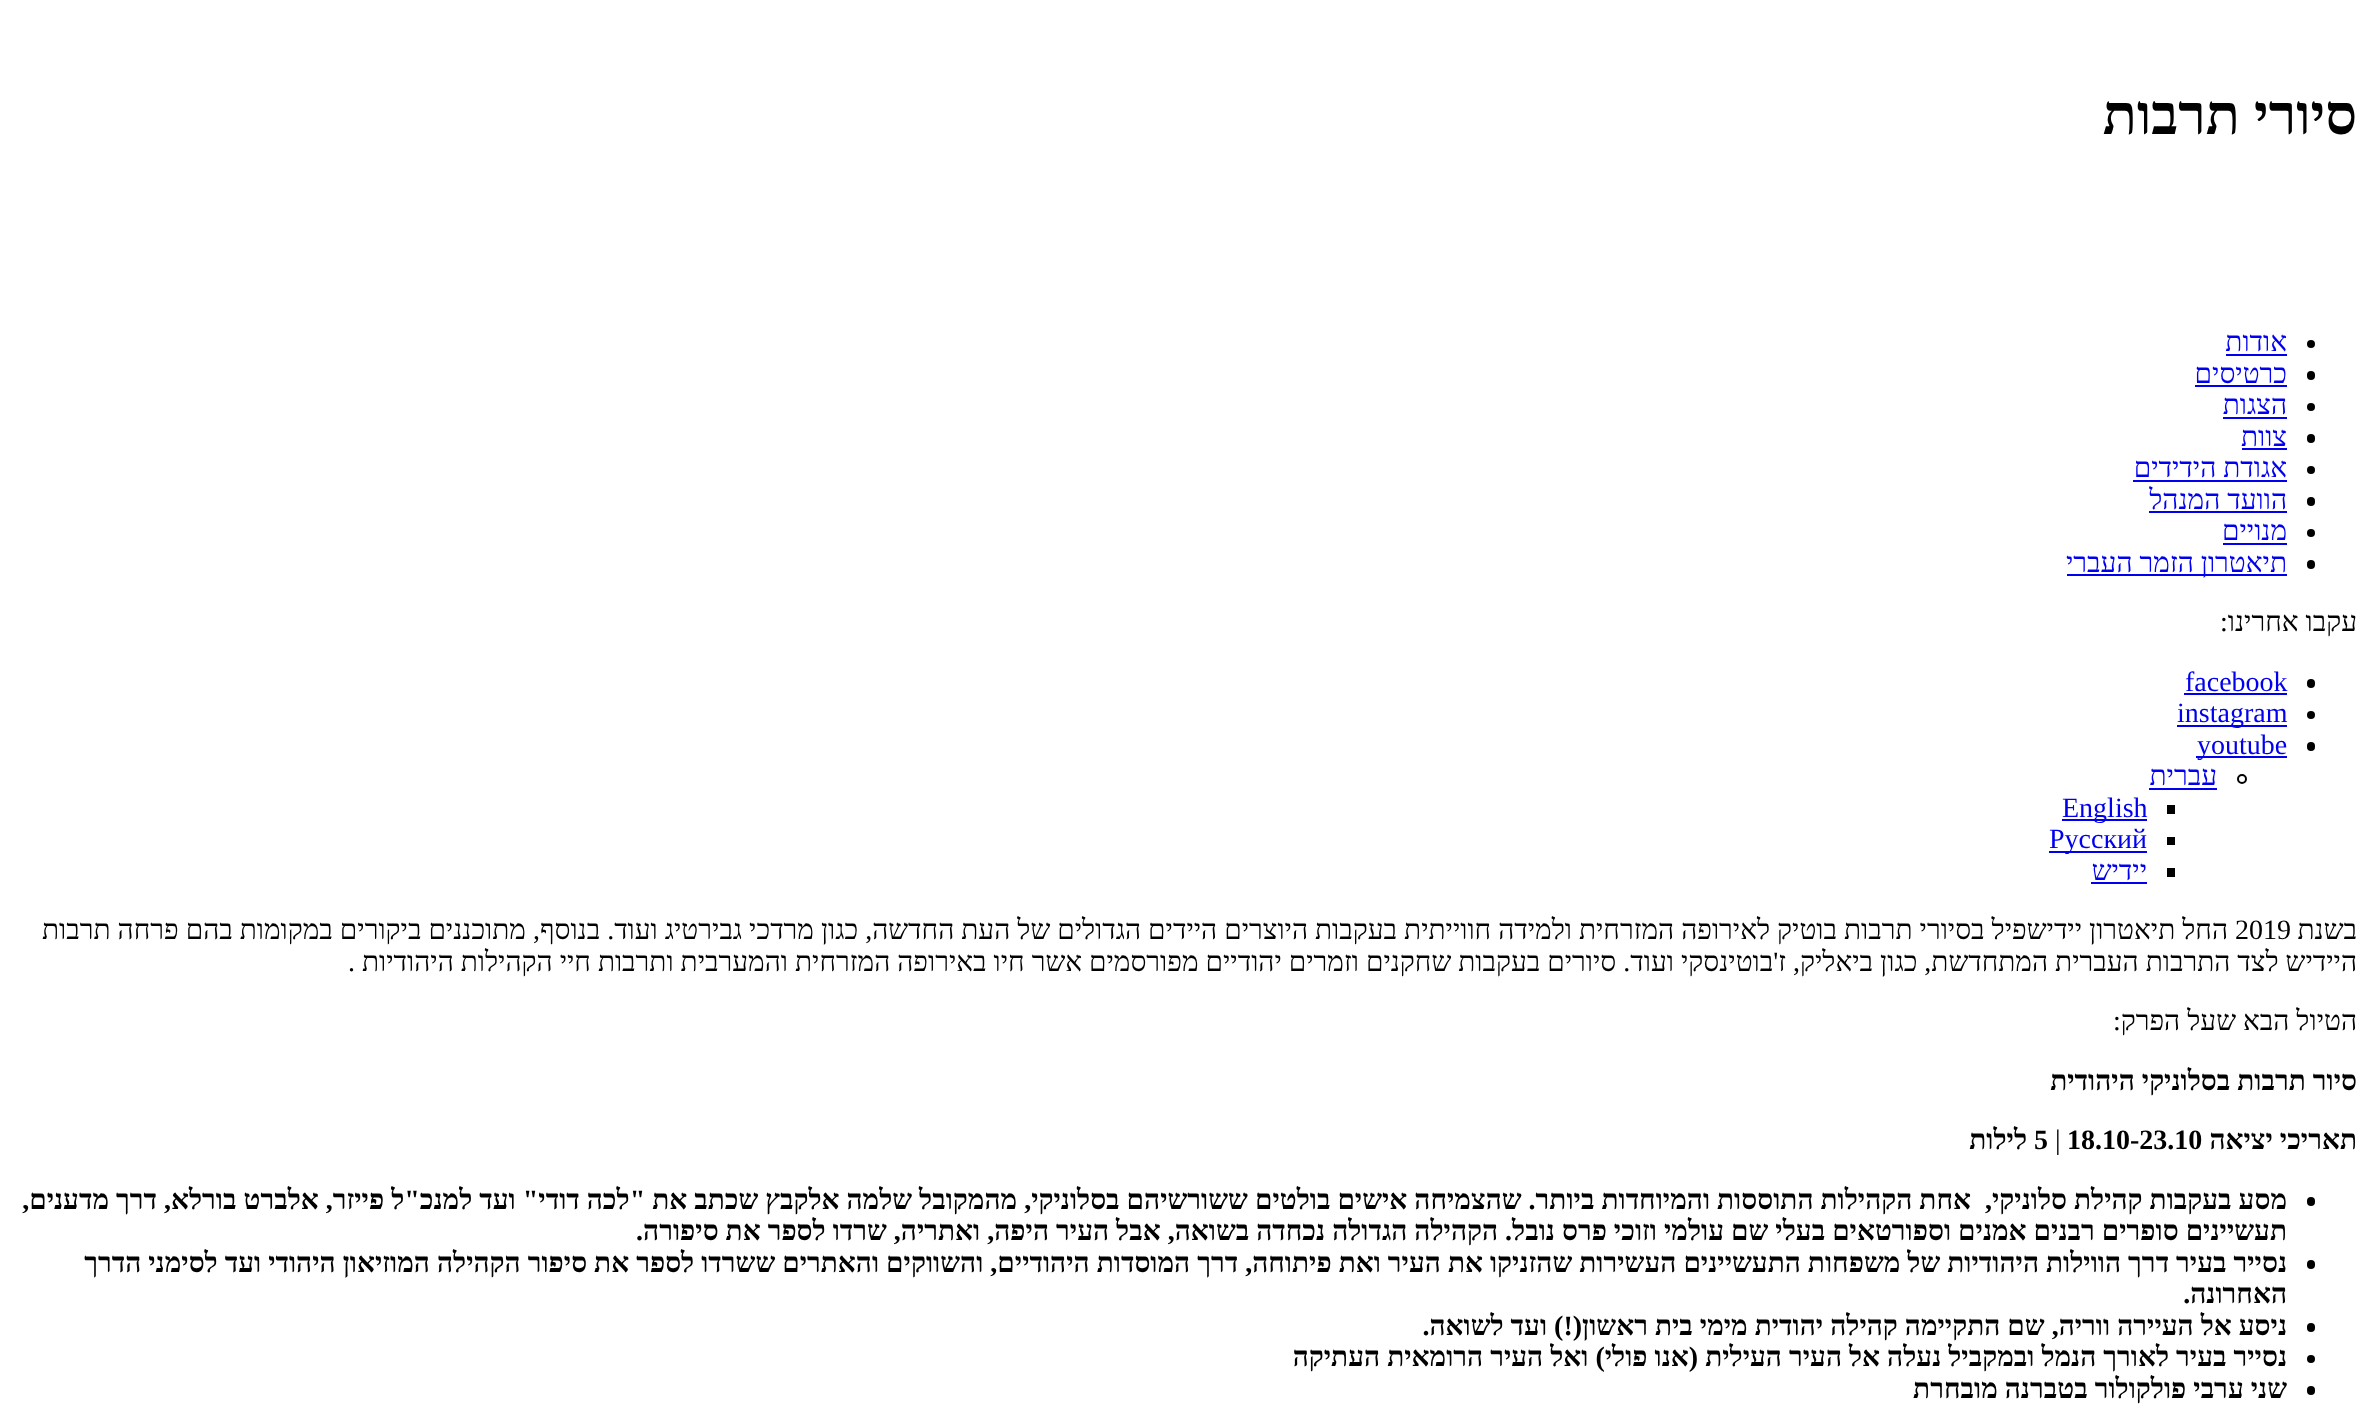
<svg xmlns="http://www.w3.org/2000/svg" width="2370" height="1419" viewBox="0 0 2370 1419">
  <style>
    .t1 { font: bold 56px Liberation Serif; direction: rtl; fill: #000; }
    .t2 { font: 28px Liberation Serif; direction: rtl; fill: #00e; }
    .t3 { font: 28px Liberation Serif; direction: rtl; fill: #000; }
    .t4 { font: 28px Liberation Serif; fill: #00e; }
    .t5 { font: 28px Liberation Serif; fill: #000; }
    .t6 { font: bold 28px Liberation Serif; direction: rtl; fill: #000; }
    .t7 { font: bold 28px Liberation Serif; fill: #000; }
  </style>
  <rect width="100%" height="100%" fill="#fff"/>
  <text x="2357" y="134" class="t1">סיורי תרבות</text>
  <circle cx="2311" cy="344" r="4" fill="#000"/>
  <text x="2287" y="351" class="t2">אודות</text>
  <rect x="2226" y="354" width="61" height="2" fill="#00e"/>
  <rect x="2307" y="371" width="8" height="9" rx="4" fill="#000"/>
  <text x="2287" y="383" class="t2">כרטיסים</text>
  <rect x="2195" y="385" width="92" height="2" fill="#00e"/>
  <circle cx="2311" cy="407" r="4" fill="#000"/>
  <text x="2287" y="414" class="t2">הצגות</text>
  <rect x="2223" y="417" width="64" height="2" fill="#00e"/>
  <rect x="2307" y="434" width="8" height="9" rx="4" fill="#000"/>
  <text x="2287" y="446" class="t2">צוות</text>
  <rect x="2242" y="448" width="45" height="2" fill="#00e"/>
  <circle cx="2311" cy="470" r="4" fill="#000"/>
  <text x="2287" y="477" class="t2">אגודת הידידים</text>
  <rect x="2133" y="480" width="154" height="2" fill="#00e"/>
  <rect x="2307" y="497" width="8" height="9" rx="4" fill="#000"/>
  <text x="2287" y="509" class="t2">הוועד המנהל</text>
  <rect x="2149" y="511" width="138" height="2" fill="#00e"/>
  <circle cx="2311" cy="533" r="4" fill="#000"/>
  <text x="2287" y="540" class="t2">מנויים</text>
  <rect x="2223" y="543" width="64" height="2" fill="#00e"/>
  <rect x="2307" y="560" width="8" height="9" rx="4" fill="#000"/>
  <rect x="2067" y="574" width="220" height="2" fill="#00e"/>
  <text x="2287" y="572" class="t2">תיאטרון הזמר העברי</text>
  <text x="2357" y="631" class="t3">עקבו אחרינו:</text>
  <rect x="2307" y="679" width="8" height="9" rx="4" fill="#000"/>
  <text x="2185" y="691" class="t4">facebook</text>
  <rect x="2184" y="693" width="103" height="2" fill="#00e"/>
  <circle cx="2311" cy="715" r="4" fill="#000"/>
  <rect x="2177" y="725" width="110" height="2" fill="#00e"/>
  <text x="2177" y="722" class="t4">instagram</text>
  <rect x="2307" y="742" width="8" height="9" rx="4" fill="#000"/>
  <rect x="2196" y="756" width="91" height="2" fill="#00e"/>
  <text x="2197" y="754" class="t4">youtube</text>
  <circle cx="2242" cy="779" r="4" fill="none" stroke="#000" stroke-width="2"/>
  <text x="2217" y="785" class="t2">עברית</text>
  <rect x="2149" y="788" width="68" height="2" fill="#00e"/>
  <rect x="2167" y="805" width="8" height="9" fill="#000"/>
  <rect x="2062" y="819" width="85" height="2" fill="#00e"/>
  <text x="2062" y="817" class="t4">English</text>
  <rect x="2167" y="837" width="8" height="8" fill="#000"/>
  <rect x="2049" y="851" width="98" height="2" fill="#00e"/>
  <text x="2049" y="848" class="t4">Русский</text>
  <rect x="2167" y="868" width="8" height="9" fill="#000"/>
  <text x="2147" y="880" class="t2">יידיש</text>
  <rect x="2091" y="882" width="56" height="2" fill="#00e"/>
  <text x="2357" y="939" class="t3">בשנת</text>
  <text x="2235" y="939" class="t5">2019</text>
  <text x="2228" y="939" class="t3">החל תיאטרון יידישפיל בסיורי תרבות בוטיק לאירופה המזרחית ולמידה חווייתית בעקבות היוצרים היידים הגדולים של העת החדשה, כגון מרדכי גבירטיג ועוד. בנוסף, מתוכננים ביקורים במקומות בהם פרחה תרבות</text>
  <text x="2357" y="971" class="t3">היידיש לצד התרבות העברית המתחדשת, כגון ביאליק, ז'בוטינסקי ועוד. סיורים בעקבות שחקנים וזמרים יהודיים מפורסמים אשר חיו באירופה המזרחית והמערבית ותרבות חיי הקהילות היהודיות .</text>
  <text x="2357" y="1030" class="t3">הטיול הבא שעל הפרק:</text>
  <text x="2357" y="1090" class="t6">סיור תרבות בסלוניקי היהודית</text>
  <text x="2357" y="1149" class="t6">תאריכי יציאה</text>
  <text x="2067" y="1149" class="t7">18.10-23.10</text>
  <text x="2055" y="1149" class="t5">|</text>
  <text x="2034" y="1149" class="t7">5</text>
  <text x="2027" y="1149" class="t6">לילות</text>
  <rect x="2307" y="1197" width="8" height="9" rx="4" fill="#000"/>
  <text x="2287" y="1209" class="t6" xml:space="preserve">מסע בעקבות קהילת סלוניקי,  אחת הקהילות התוססות והמיוחדות ביותר. שהצמיחה אישים בולטים ששורשיהם בסלוניקי, מהמקובל שלמה אלקבץ שכתב את "לכה דודי" ועד למנכ"ל פייזר, אלברט בורלא, דרך מדענים,</text>
  <text x="2287" y="1240" class="t6">תעשיינים סופרים רבנים אמנים וספורטאים בעלי שם עולמי וזוכי פרס נובל. הקהילה הגדולה נכחדה בשואה, אבל העיר היפה, ואתריה, שרדו לספר את סיפורה.</text>
  <rect x="2307" y="1260" width="8" height="9" rx="4" fill="#000"/>
  <text x="2287" y="1272" class="t6">נסייר בעיר דרך הווילות היהודיות של משפחות התעשיינים העשירות שהזניקו את העיר ואת פיתוחה, דרך המוסדות היהודיים, והשווקים והאתרים ששרדו לספר את סיפור הקהילה המוזיאון היהודי ועד לסימני הדרך</text>
  <text x="2287" y="1303" class="t6">האחרונה.</text>
  <rect x="2307" y="1323" width="8" height="9" rx="4" fill="#000"/>
  <text x="2287" y="1335" class="t6">ניסע אל העיירה ווריה, שם התקיימה קהילה יהודית מימי בית ראשון(!) ועד לשואה.</text>
  <circle cx="2311" cy="1359" r="4" fill="#000"/>
  <text x="2287" y="1366" class="t6">נסייר בעיר לאורך הנמל ובמקביל נעלה אל העיר העילית (אנו פולי) ואל העיר הרומאית העתיקה</text>
  <rect x="2307" y="1386" width="8" height="9" rx="4" fill="#000"/>
  <text x="2287" y="1398" class="t6">שני ערבי פולקולור בטברנה מובחרת</text>
</svg>
